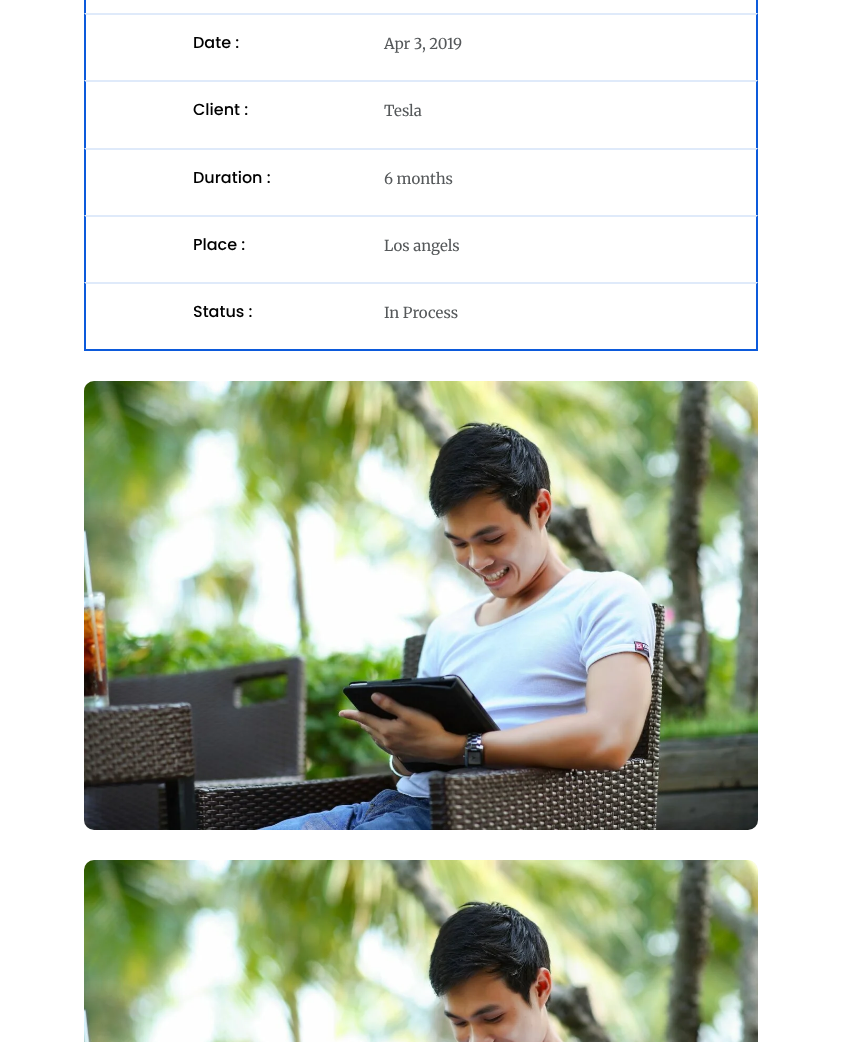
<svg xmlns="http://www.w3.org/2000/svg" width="842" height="1042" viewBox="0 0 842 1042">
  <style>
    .t1 { font: 500 16px Poppins; fill: #000; }
    .t2 { font: 15px Merriweather; fill: #55585a; }
  </style>
  <rect width="100%" height="100%" fill="#fff"/>
  <rect x="756" y="0" width="2" height="13" fill="#0c5adb"/>
  <rect x="84" y="0" width="2" height="13" fill="#0c5adb"/>
  <path d="M84 13H758L756 15H86Z" fill="#dfeafa"/>
  <path d="M758 13V80H756V15Z" fill="#0c5adb"/>
  <path d="M84 80V13L86 15V80Z" fill="#0c5adb"/>
  <text x="193" y="48" class="t1">Date :</text>
  <text x="384" y="49" class="t2">Apr 3, 2019</text>
  <path d="M84 80H758L756 82H86Z" fill="#dfeafa"/>
  <path d="M758 80V148H756V82Z" fill="#0c5adb"/>
  <path d="M84 148V80L86 82V148Z" fill="#0c5adb"/>
  <text x="193" y="115" class="t1">Client :</text>
  <text x="384" y="116" class="t2">Tesla</text>
  <path d="M84 148H758L756 150H86Z" fill="#dfeafa"/>
  <path d="M758 148V215H756V150Z" fill="#0c5adb"/>
  <path d="M84 215V148L86 150V215Z" fill="#0c5adb"/>
  <text x="193" y="183" class="t1">Duration :</text>
  <text x="384" y="184" class="t2">6 months</text>
  <path d="M84 215H758L756 217H86Z" fill="#dfeafa"/>
  <path d="M758 215V282H756V217Z" fill="#0c5adb"/>
  <path d="M84 282V215L86 217V282Z" fill="#0c5adb"/>
  <text x="193" y="250" class="t1">Place :</text>
  <text x="384" y="251" class="t2">Los angels</text>
  <path d="M84 282H758L756 284H86Z" fill="#dfeafa"/>
  <path d="M758 282V351L756 349V284Z" fill="#0c5adb"/>
  <rect x="84" y="349" width="674" height="2" fill="#0c5adb"/>
  <path d="M84 351V282L86 284V349Z" fill="#0c5adb"/>
  <text x="193" y="317" class="t1">Status :</text>
  <text x="384" y="318" class="t2">In Process</text>
  <image x="84" y="381" width="674" height="449" href="images/1.png"/>
  <image x="84" y="860" width="674" height="182" href="images/2.png"/>
</svg>
